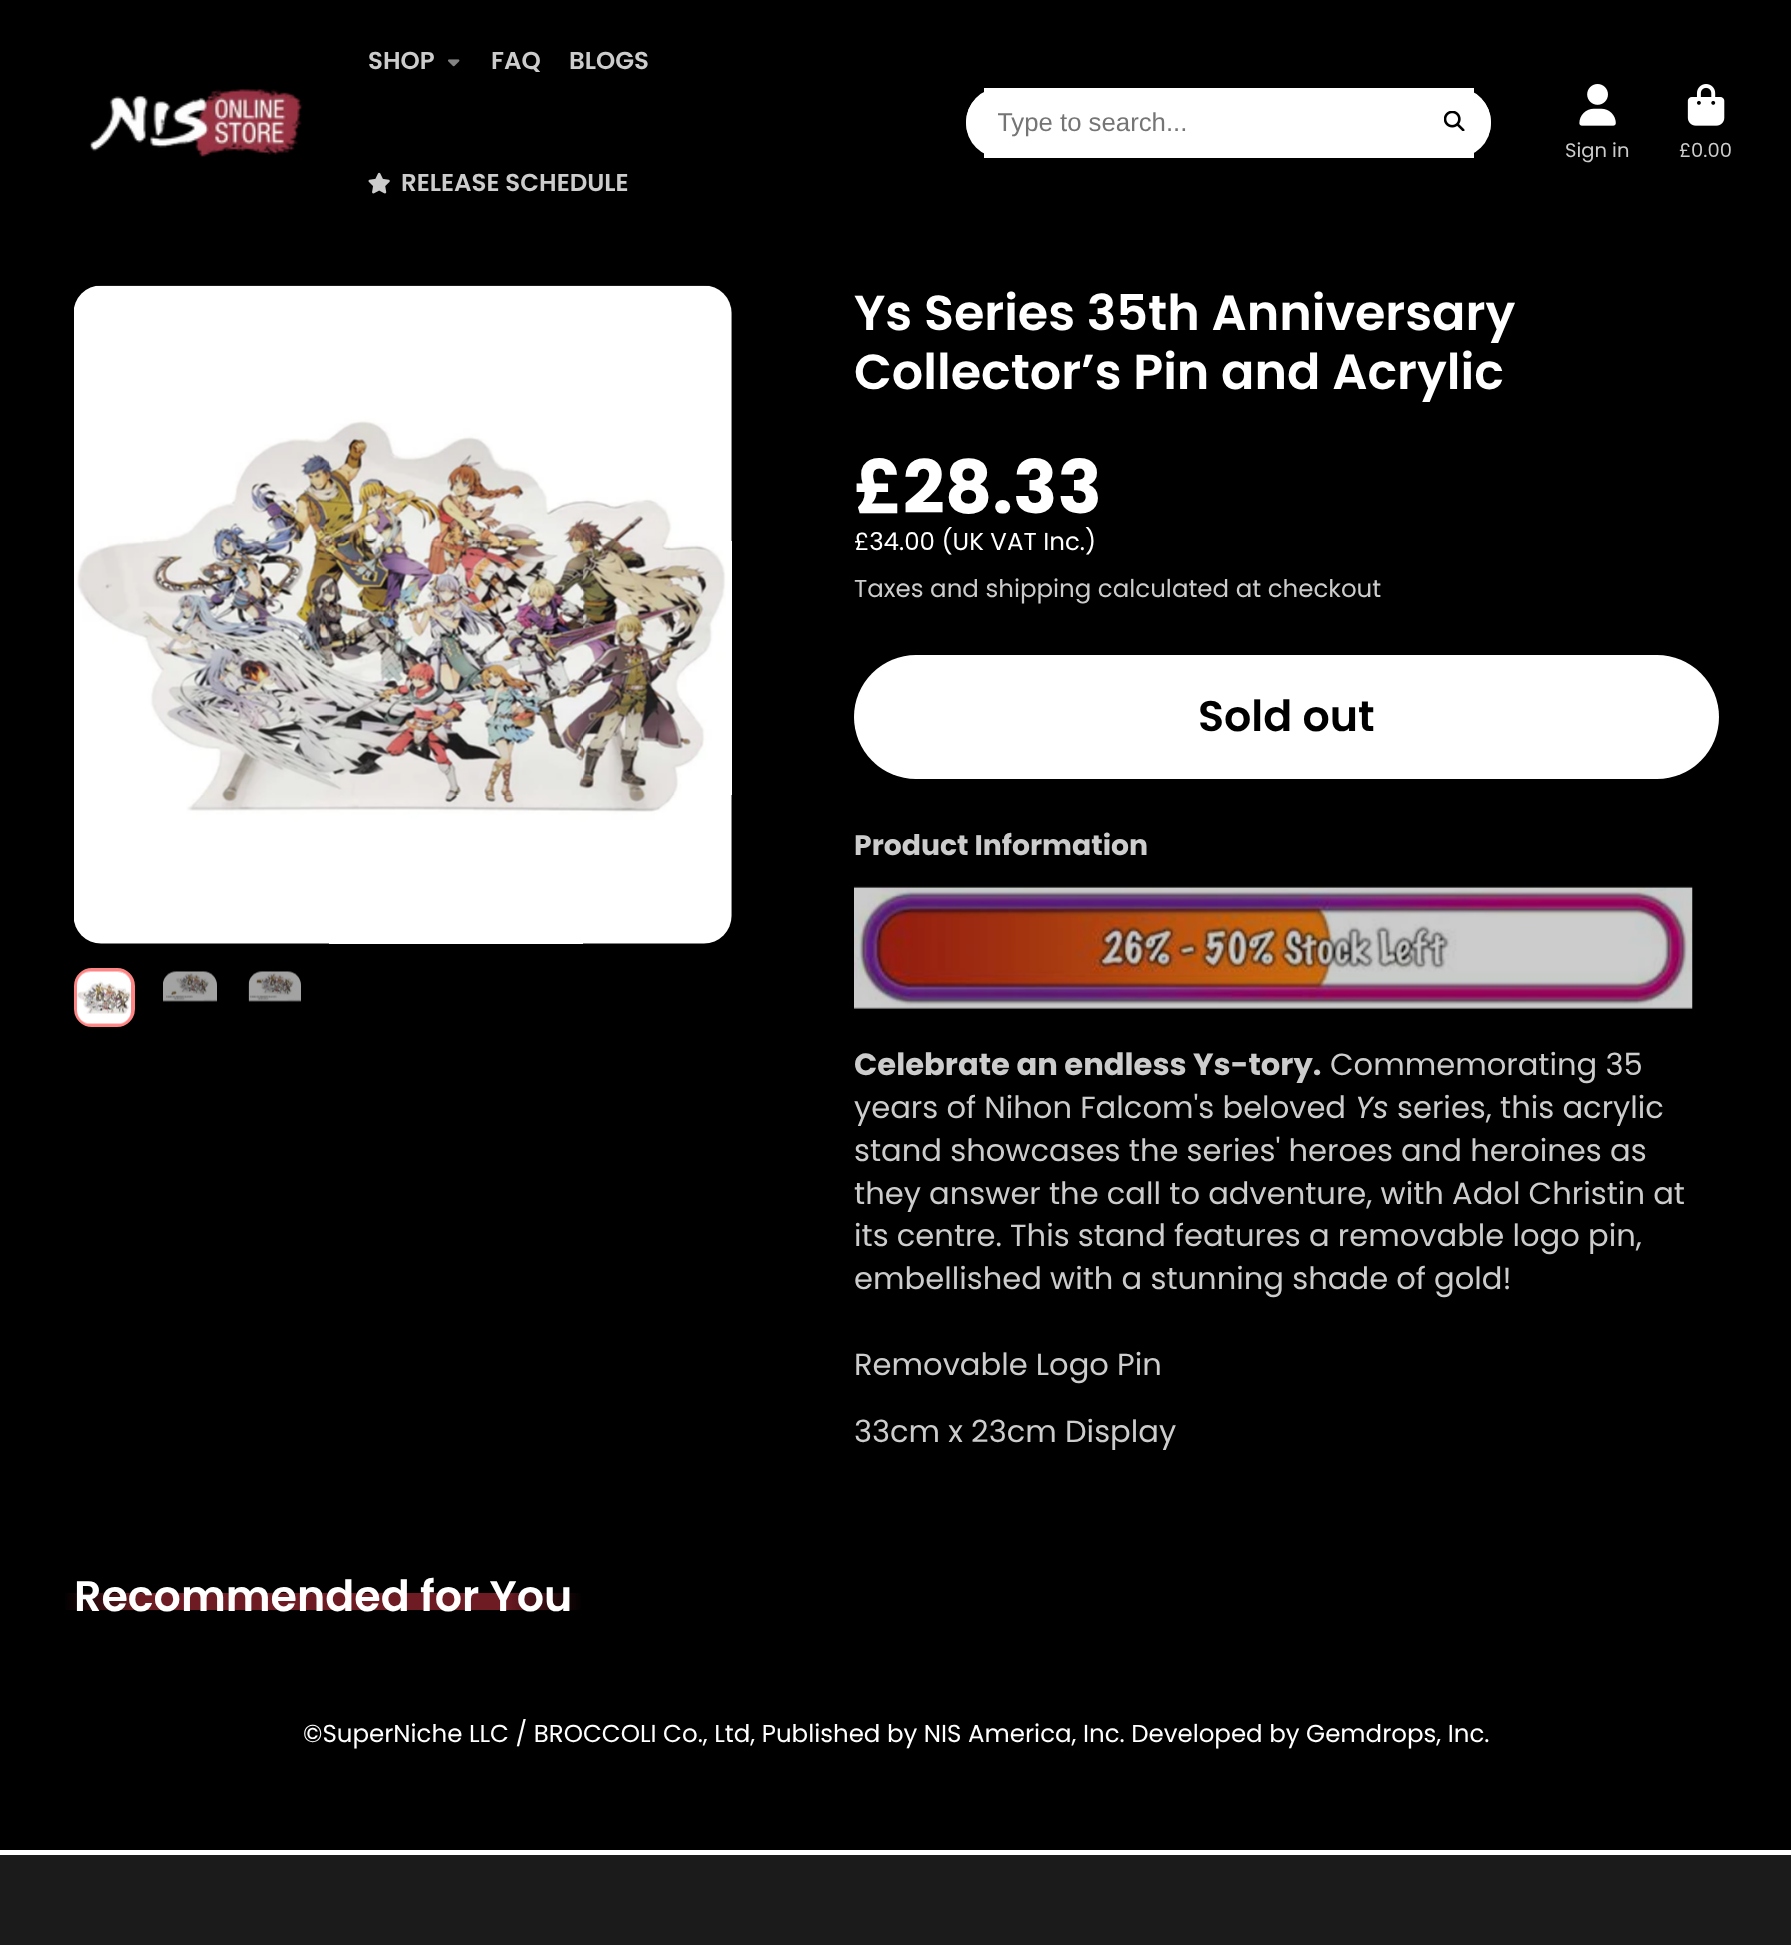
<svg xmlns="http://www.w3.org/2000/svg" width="1791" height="1945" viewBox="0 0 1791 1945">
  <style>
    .t1 { font: 600 24.5px Poppins; fill: #ccc; }
    .t2 { font: 25.75px Liberation Sans; fill: #757575; }
    .t3 { font: 19.5px Poppins; fill: #ccc; }
    .t4 { font: 600 49.25px Poppins; fill: #fff; }
    .t5 { font: bold 73.5px Poppins; fill: #fff; }
    .t6 { font: 24.5px Poppins; fill: #fff; }
    .t7 { font: 24.5px Poppins; fill: #ccc; }
    .t8 { font: 600 42.8px Poppins; fill: #000; }
    .t9 { font: bold 28.25px Poppins; fill: #ccc; }
    .t10 { font: bold 30.6px Poppins; fill: #ccc; }
    .t11 { font: 30.6px Poppins; fill: #ccc; }
    .t12 { font: italic 30.6px Poppins; fill: #ccc; }
    .t13 { font: 600 42.8px Poppins; fill: #fff; }
  </style>
  <defs>
    <clipPath id="clip1"><rect x="998" y="109" width="463" height="28"/></clipPath>
    <linearGradient id="g1" gradientUnits="userSpaceOnUse" x1="63" y1="1601" x2="583" y2="1601"><stop offset="0" stop-color="#000"/><stop offset="0.15" stop-color="#6e1b23"/><stop offset="0.85" stop-color="#6e1b23"/><stop offset="1" stop-color="#000"/></linearGradient>
  </defs>
  <rect width="100%" height="100%" fill="#000"/>
  <image x="89" y="89" width="214" height="68" href="images/1.png"/>
  <text x="368" y="69" class="t1">SHOP</text>
  <image x="448" y="59" width="12" height="8" href="images/2.png"/>
  <text x="491" y="69" class="t1">FAQ</text>
  <text x="569" y="69" class="t1">BLOGS</text>
  <image x="368" y="172" width="22" height="22" href="images/3.png"/>
  <text x="401" y="191" class="t1">RELEASE SCHEDULE</text>
  <rect x="966" y="88" width="525" height="70" rx="35" fill="#fff"/>
  <rect x="984" y="88" width="490" height="70" fill="#fff"/>
  <rect x="966" y="88" width="525" height="68" rx="34" fill="#fff"/>
  <g clip-path="url(#clip1)">
    <text x="997" y="131" class="t2">Type to search...</text>
  </g>
  <image x="1444" y="111" width="21" height="20" href="images/4.png"/>
  <image x="1579" y="84" width="37" height="42" href="images/5.png"/>
  <text x="1565" y="157" class="t3">Sign in</text>
  <image x="1687" y="84" width="38" height="42" href="images/6.png"/>
  <text x="1679" y="157" class="t3">£0.00</text>
  <rect x="74" y="285" width="658" height="658" rx="28" fill="#1b1b1b"/>
  <image x="74" y="286" width="658" height="658" href="images/7.png"/>
  <rect x="76" y="970" width="57" height="55" rx="16" fill="none" stroke="#ff8585" stroke-width="4"/>
  <image x="77" y="971" width="54" height="54" href="images/8.png"/>
  <image x="163" y="971" width="54" height="31" href="images/9.png"/>
  <image x="248" y="971" width="53" height="31" href="images/10.png"/>
  <text x="854" y="330" class="t4">Ys Series 35th Anniversary</text>
  <text x="854" y="389" class="t4">Collector’s Pin and Acrylic</text>
  <text x="854" y="513" class="t5">£28.33</text>
  <text x="854" y="550" class="t6">£34.00 (UK VAT Inc.)</text>
  <text x="854" y="597" class="t7">Taxes and shipping calculated at checkout</text>
  <rect x="854" y="655" width="865" height="124" rx="62" fill="#fff"/>
  <text x="1198" y="731" class="t8">Sold out</text>
  <text x="854" y="855" class="t9">Product Information</text>
  <image x="854" y="886" width="839" height="123" href="images/11.png"/>
  <text x="854" y="1075" class="t10">Celebrate an endless Ys-tory.</text>
  <text x="1330" y="1075" class="t11">Commemorating 35</text>
  <text x="854" y="1118" class="t11">years of Nihon Falcom's beloved</text>
  <text x="1355" y="1118" class="t12">Ys</text>
  <text x="1397" y="1118" class="t11">series, this acrylic</text>
  <text x="854" y="1161" class="t11">stand showcases the series' heroes and heroines as</text>
  <text x="854" y="1204" class="t11">they answer the call to adventure, with Adol Christin at</text>
  <text x="854" y="1246" class="t11">its centre. This stand features a removable logo pin,</text>
  <text x="854" y="1289" class="t11">embellished with a stunning shade of gold!</text>
  <text x="854" y="1375" class="t11">Removable Logo Pin</text>
  <text x="854" y="1442" class="t11">33cm x 23cm Display</text>
  <rect x="65" y="1593" width="516" height="17" fill="url(#g1)"/>
  <text x="74" y="1611" class="t13">Recommended for You</text>
  <text x="303" y="1742" class="t6">©SuperNiche LLC / BROCCOLI Co., Ltd, Published by NIS America, Inc. Developed by Gemdrops, Inc.</text>
  <rect x="0" y="1855" width="1791" height="90" fill="#1b1b1b"/>
  <rect x="0" y="1850" width="1791" height="5" fill="#fff"/>
</svg>
